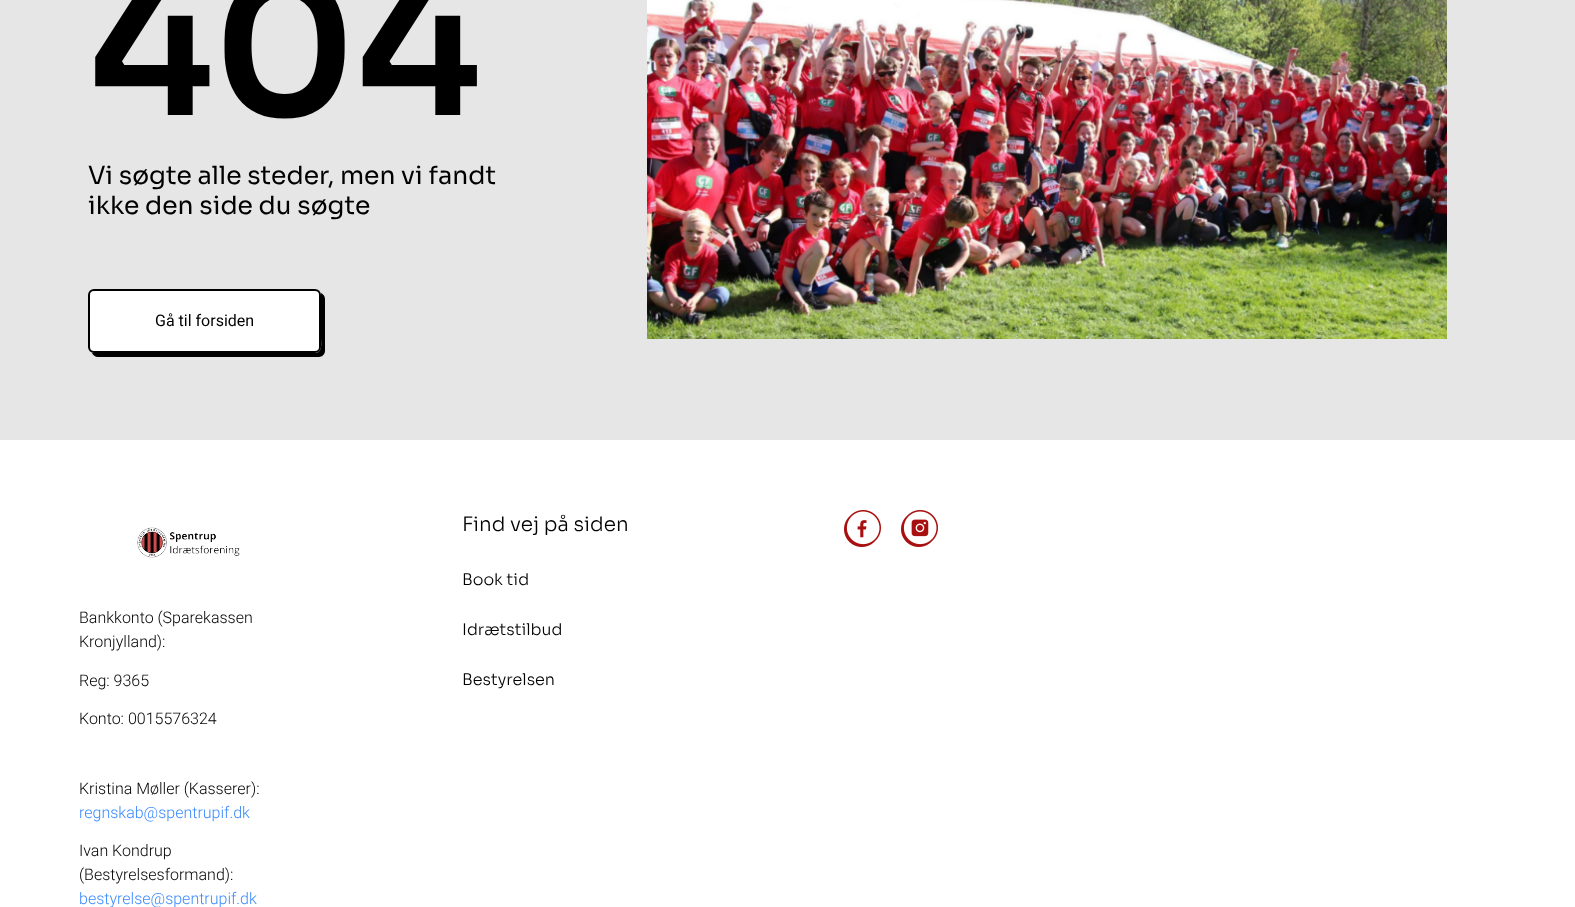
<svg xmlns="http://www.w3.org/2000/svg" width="1575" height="907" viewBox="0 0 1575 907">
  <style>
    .t1 { font: 600 190px Sora; letter-spacing: -1px; fill: #000; }
    .t2 { font: 25px Sora; fill: #000; }
    .t3 { font: 16px Roboto; fill: #000; }
    .t4 { font: 300 16px Roboto; fill: #000; }
    .t5 { font: 300 16px Roboto; fill: #3b8bff; }
    .t6 { font: 300 20px Sora; fill: #000; }
    .t7 { font: 300 16px Sora; fill: #000; }
  </style>
  <rect width="100%" height="100%" fill="#e6e6e6"/>
  <text x="88" y="115" class="t1">404</text>
  <text x="88" y="184" class="t2">Vi søgte alle steder, men vi fandt</text>
  <text x="88" y="214" class="t2">ikke den side du søgte</text>
  <path d="M92 353C93 355 95 357 98 357H319C322 357 325 354 325 351V299C325 296 323 294 321 293V338C321 343 323 353 315 353Z" fill="#000"/>
  <rect x="89" y="290" width="231" height="62" rx="5" fill="#fff" stroke="#000" stroke-width="2"/>
  <text x="155" y="326" class="t3">Gå til forsiden</text>
  <image x="647" y="0" width="800" height="339" href="images/1.png"/>
  <rect x="0" y="440" width="1575" height="467" fill="#fff"/>
  <image x="137" y="527" width="103" height="31" href="images/2.png"/>
  <text x="79" y="623" class="t4">Bankkonto (Sparekassen</text>
  <text x="79" y="647" class="t4">Kronjylland):</text>
  <text x="79" y="686" class="t4">Reg: 9365</text>
  <text x="79" y="724" class="t4">Konto: 0015576324</text>
  <text x="79" y="794" class="t4">Kristina Møller (Kasserer):</text>
  <text x="79" y="818" class="t5">regnskab@spentrupif.dk</text>
  <text x="79" y="856" class="t4">Ivan Kondrup</text>
  <text x="79" y="880" class="t4">(Bestyrelsesformand):</text>
  <text x="79" y="904" class="t5">bestyrelse@spentrupif.dk</text>
  <text x="462" y="531" class="t6">Find vej på siden</text>
  <text x="462" y="585" class="t7">Book tid</text>
  <text x="462" y="635" class="t7">Idrætstilbud</text>
  <text x="462" y="685" class="t7">Bestyrelsen</text>
  <image x="844" y="510" width="37" height="37" href="images/3.png"/>
  <image x="901" y="510" width="37" height="37" href="images/4.png"/>
</svg>
